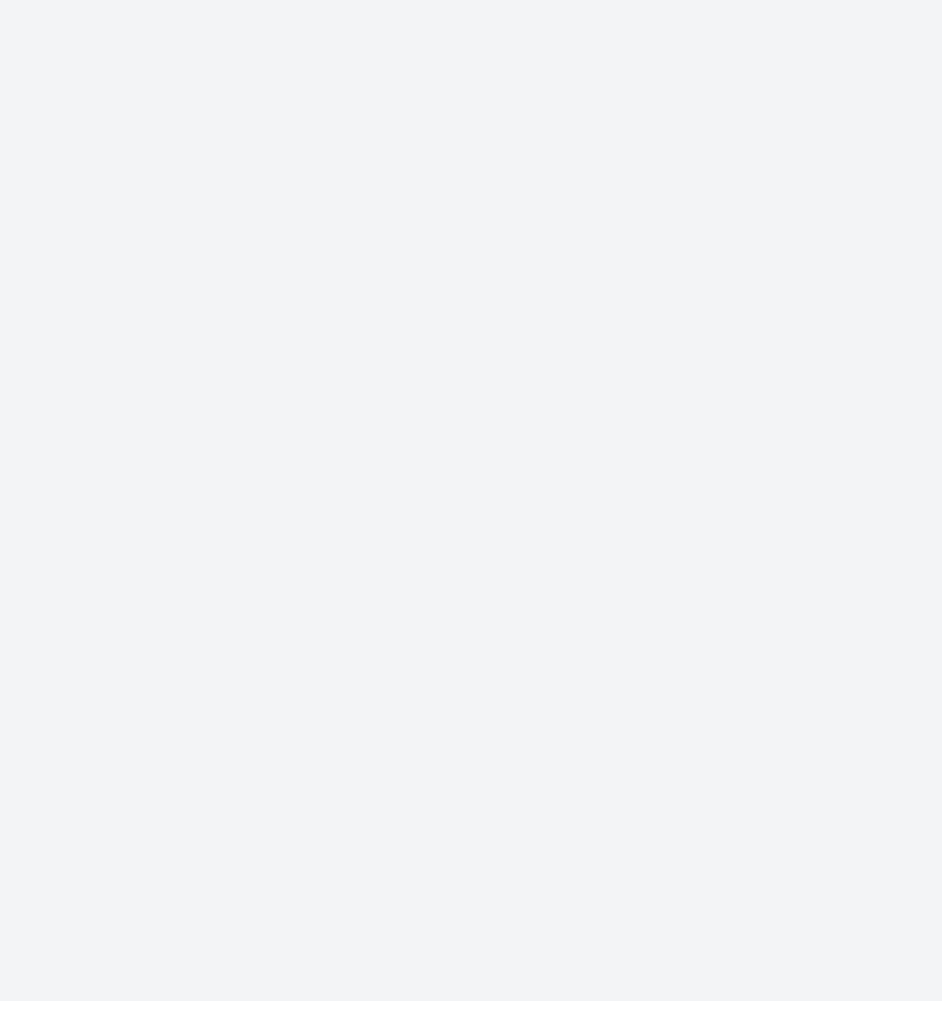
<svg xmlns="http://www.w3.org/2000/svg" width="942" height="1027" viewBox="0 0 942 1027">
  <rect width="100%" height="100%" fill="#fff"/>
  <rect x="0" y="0" width="942" height="1001" fill="#f3f4f6"/>
</svg>
